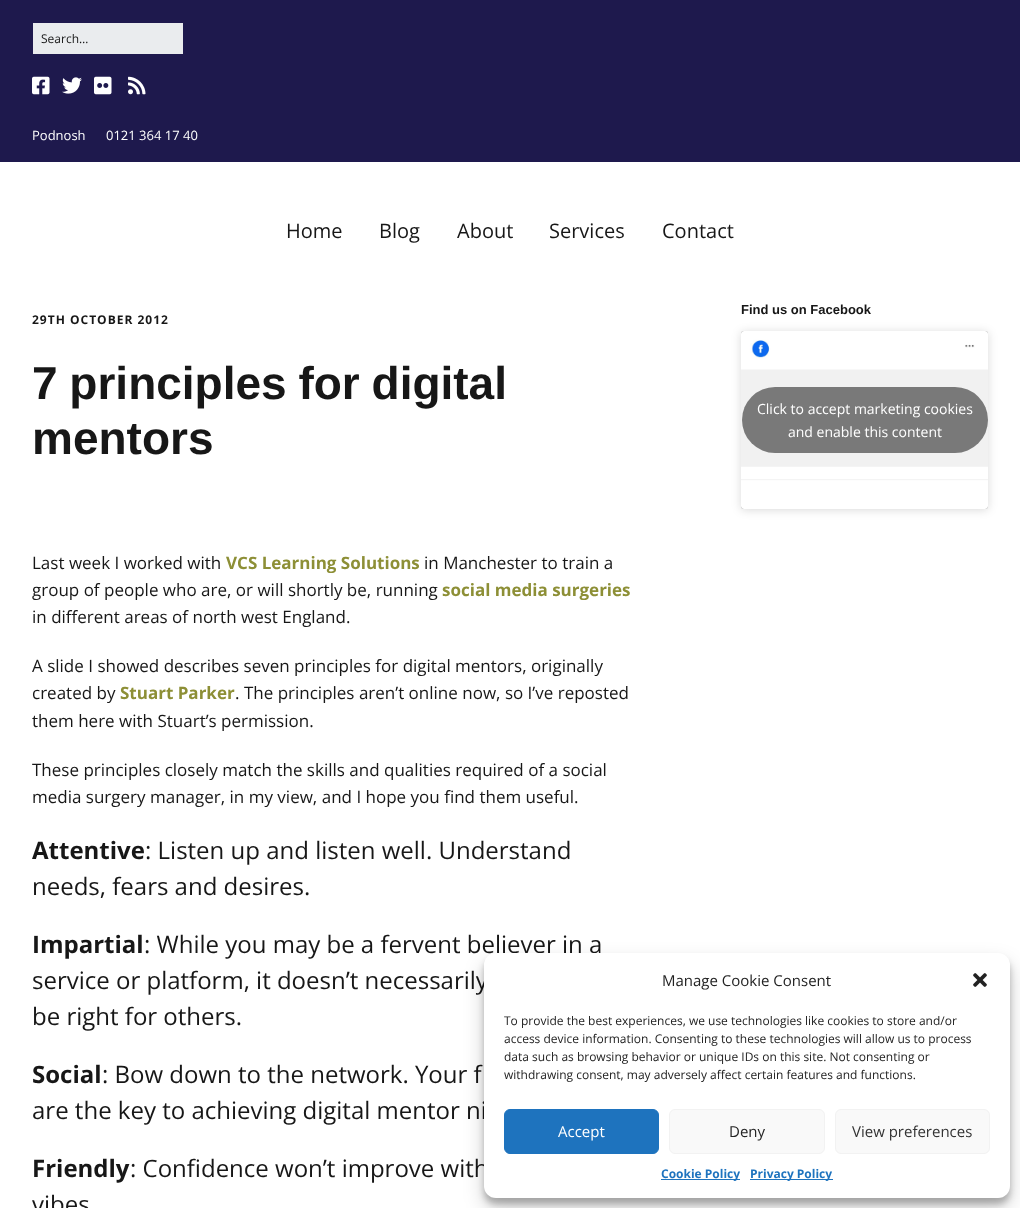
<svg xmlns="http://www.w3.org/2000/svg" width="1020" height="1208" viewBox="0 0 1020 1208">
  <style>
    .t1 { font: 12px Open Sans; fill: #171717; }
    .t2 { font: 13px Open Sans; fill: #fff; }
    .t3 { font: 20px Open Sans; fill: #171717; }
    .t4 { font: bold 12px Open Sans; letter-spacing: 1px; fill: #171717; }
    .t5 { font: bold 46px Liberation Sans; fill: #171717; }
    .t6 { font: 17px Open Sans; fill: #171717; }
    .t7 { font: bold 17px Open Sans; fill: #8d8f36; }
    .t8 { font: bold 24px Open Sans; fill: #171717; }
    .t9 { font: 24px Open Sans; fill: #171717; }
    .t10 { font: bold 13px Liberation Sans; fill: #171717; }
    .t11 { font: 14px Open Sans; fill: #fff; }
    .t12 { font: 15px Open Sans; fill: #222; }
    .t13 { font: 12px Open Sans; fill: #222; }
    .t14 { font: 15px Open Sans; fill: #fff; }
    .t15 { font: 15px Open Sans; fill: #333; }
    .t16 { font: bold 12px Open Sans; fill: #1e73be; }
  </style>
  <rect width="100%" height="100%" fill="#1e194d"/>
  <rect x="33" y="23" width="150" height="31" fill="#eaecee"/>
  <text x="41" y="43" class="t1">Search…</text>
  <image x="32" y="76" width="18" height="19" href="images/1.png"/>
  <image x="62" y="77" width="20" height="17" href="images/2.png"/>
  <image x="94" y="76" width="18" height="19" href="images/3.png"/>
  <image x="128" y="76" width="18" height="19" href="images/4.png"/>
  <text x="32" y="140" class="t2">Podnosh</text>
  <text x="106" y="140" class="t2">0121 364 17 40</text>
  <rect x="0" y="162" width="1020" height="1046" fill="#fff"/>
  <text x="286" y="238" class="t3">Home</text>
  <text x="379" y="238" class="t3">Blog</text>
  <text x="457" y="238" class="t3">About</text>
  <text x="549" y="238" class="t3">Services</text>
  <text x="662" y="238" class="t3">Contact</text>
  <text x="32" y="324" class="t4">29TH OCTOBER 2012</text>
  <text x="32" y="399" word-spacing="-1" class="t5">7 principles for digital</text>
  <text x="32" y="454" class="t5">mentors</text>
  <text x="32" y="569" class="t6">Last week I worked with</text>
  <text x="226" y="569" class="t7">VCS Learning Solutions</text>
  <text x="424" y="569" class="t6">in Manchester to train a</text>
  <text x="32" y="596" class="t6">group of people who are, or will shortly be, running</text>
  <text x="442" y="596" class="t7">social media surgeries</text>
  <text x="32" y="623" class="t6">in different areas of north west England.</text>
  <text x="32" y="672" class="t6">A slide I showed describes seven principles for digital mentors, originally</text>
  <text x="32" y="699" class="t6">created by</text>
  <text x="120" y="699" class="t7">Stuart Parker</text>
  <text x="235" y="699" class="t6">. The principles aren’t online now, so I’ve reposted</text>
  <text x="32" y="727" class="t6">them here with Stuart’s permission.</text>
  <text x="32" y="776" class="t6">These principles closely match the skills and qualities required of a social</text>
  <text x="32" y="803" class="t6">media surgery manager, in my view, and I hope you find them useful.</text>
  <text x="32" y="859" class="t8">Attentive</text>
  <text x="145" y="859" class="t9">: Listen up and listen well. Understand</text>
  <text x="32" y="895" class="t9">needs, fears and desires.</text>
  <text x="32" y="953" class="t8">Impartial</text>
  <text x="144" y="953" class="t9">: While you may be a fervent believer in a</text>
  <text x="32" y="989" class="t9">service or platform, it doesn’t necessarily</text>
  <text x="32" y="1025" class="t9">be right for others.</text>
  <text x="32" y="1083" class="t8">Social</text>
  <text x="102" y="1083" class="t9">: Bow down to the network. Your f</text>
  <text x="32" y="1119" class="t9">are the key to achieving digital mentor ni</text>
  <text x="32" y="1177" class="t8">Friendly</text>
  <text x="130" y="1177" class="t9">: Confidence won’t improve with</text>
  <text x="32" y="1213" class="t9">vibes</text>
  <text x="741" y="314" class="t10">Find us on Facebook</text>
  <rect x="741" y="332" width="247" height="178" rx="3" fill="#00000026" filter="blur(5px)"/>
  <rect x="741" y="331" width="247" height="178" rx="3" fill="#00000080" filter="blur(0.5px)"/>
  <image x="741" y="331" width="247" height="178" href="images/5.png"/>
  <rect x="742" y="387" width="246" height="66" rx="33" fill="#797979"/>
  <text x="757" y="414" class="t11">Click to accept marketing cookies</text>
  <text x="788" y="437" class="t11">and enable this content</text>
  <rect x="484" y="959" width="526" height="245" rx="12" fill="#0000003b" filter="blur(3px)"/>
  <rect x="484" y="963" width="526" height="245" rx="12" fill="#00000030" filter="blur(10px)"/>
  <rect x="484" y="953" width="526" height="245" rx="12" fill="#fff"/>
  <text x="662" y="986" class="t12">Manage Cookie Consent</text>
  <image x="973" y="973" width="14" height="14" href="images/6.png"/>
  <text x="504" y="1025" class="t13">To provide the best experiences, we use technologies like cookies to store and/or</text>
  <text x="504" y="1043" class="t13">access device information. Consenting to these technologies will allow us to process</text>
  <text x="504" y="1061" class="t13">data such as browsing behavior or unique IDs on this site. Not consenting or</text>
  <text x="504" y="1079" class="t13">withdrawing consent, may adversely affect certain features and functions.</text>
  <rect x="504.5" y="1109.5" width="154" height="44" rx="5.5" fill="#1e73be" stroke="#1e73be"/>
  <text x="558" y="1137" class="t14">Accept</text>
  <rect x="669.5" y="1109.5" width="155" height="44" rx="5.5" fill="#f9f9f9" stroke="#f2f2f2"/>
  <text x="729" y="1137" class="t12">Deny</text>
  <rect x="835.5" y="1109.5" width="154" height="44" rx="5.5" fill="#f9f9f9" stroke="#f2f2f2"/>
  <text x="852" y="1137" class="t15">View preferences</text>
  <rect x="661" y="1179" width="79" height="1" fill="#1e73be"/>
  <text x="661" y="1178" class="t16">Cookie Policy</text>
  <rect x="750" y="1179" width="83" height="1" fill="#1e73be"/>
  <text x="750" y="1178" class="t16">Privacy Policy</text>
</svg>
